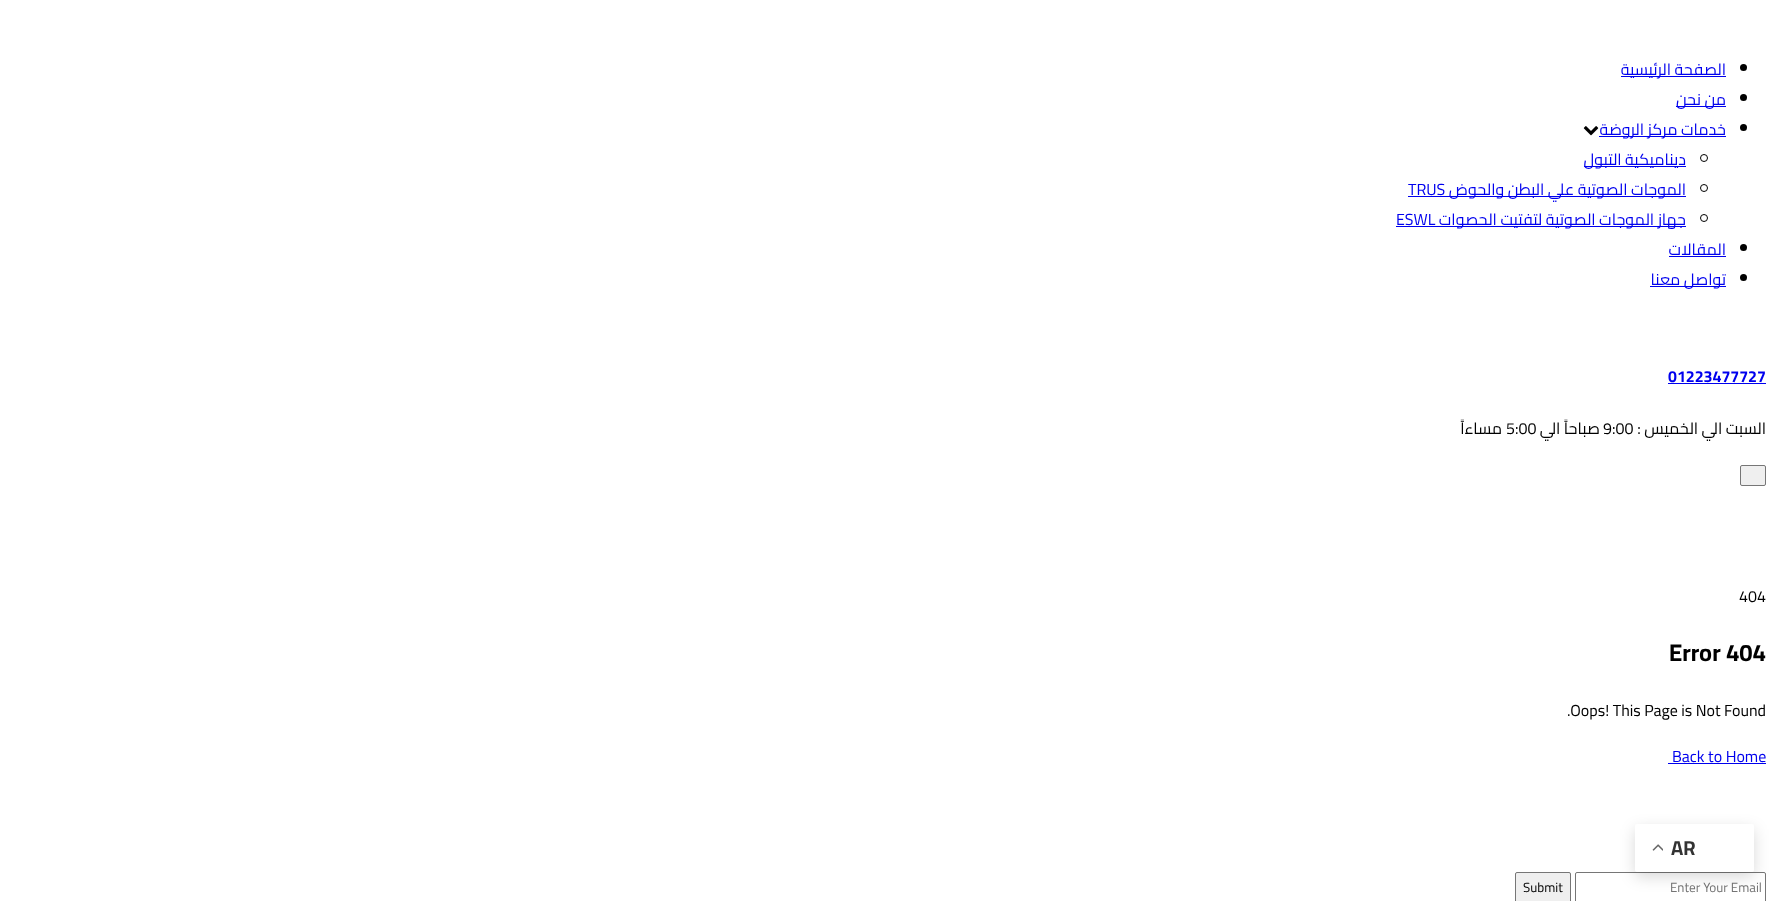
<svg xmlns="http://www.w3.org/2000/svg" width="1774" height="901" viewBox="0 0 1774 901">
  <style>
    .t1 { font: 16px Cairo; direction: rtl; fill: #00e; }
    .t2 { font: 16px Cairo; fill: #00e; }
    .t3 { font: bold 16px Cairo; fill: #00e; }
    .t4 { font: 16px Cairo; direction: rtl; fill: #000; }
    .t5 { font: 16px Cairo; fill: #000; }
    .t6 { font: bold 24px Cairo; fill: #000; }
    .t7 { font: 13.25px Cairo; fill: #757575; }
    .t8 { font: 13.25px Cairo; fill: #000; }
    .t9 { font: bold 20px Cairo; fill: #333; }
  </style>
  <rect width="100%" height="100%" fill="#fff"/>
  <circle cx="1743.5" cy="67.5" r="3.5" fill="#000"/>
  <rect x="1621" y="76" width="105" height="1" fill="#00e"/>
  <text x="1726" y="75" class="t1">الصفحة الرئيسية</text>
  <circle cx="1743.5" cy="97.5" r="3.5" fill="#000"/>
  <rect x="1676" y="106" width="50" height="1" fill="#00e"/>
  <text x="1726" y="105" class="t1">من نحن</text>
  <circle cx="1743.5" cy="127.5" r="3.5" fill="#000"/>
  <rect x="1599" y="136" width="127" height="1" fill="#00e"/>
  <text x="1726" y="135" class="t1">خدمات مركز الروضة</text>
  <image x="1583" y="126" width="16" height="10" href="images/1.png"/>
  <circle cx="1704" cy="158" r="3.5" fill="none" stroke="#000"/>
  <rect x="1584" y="166" width="102" height="1" fill="#00e"/>
  <text x="1686" y="165" class="t1">ديناميكية التبول</text>
  <circle cx="1704" cy="188" r="3.5" fill="none" stroke="#000"/>
  <rect x="1408" y="196" width="278" height="1" fill="#00e"/>
  <text x="1686" y="195" class="t1">الموجات الصوتية علي البطن والحوض</text>
  <text x="1408" y="195" class="t2">TRUS</text>
  <circle cx="1704" cy="218" r="3.5" fill="none" stroke="#000"/>
  <rect x="1396" y="226" width="290" height="1" fill="#00e"/>
  <text x="1686" y="225" class="t1">جهاز الموجات الصوتية لتفتيت الحصوات</text>
  <text x="1396" y="225" class="t2">ESWL</text>
  <circle cx="1743.5" cy="247.5" r="3.5" fill="#000"/>
  <text x="1726" y="255" class="t1">المقالات</text>
  <rect x="1669" y="256" width="57" height="1" fill="#00e"/>
  <circle cx="1743.5" cy="277.5" r="3.5" fill="#000"/>
  <rect x="1650" y="286" width="76" height="1" fill="#00e"/>
  <text x="1726" y="285" class="t1">تواصل معنا</text>
  <text x="1668" y="382" class="t3">01223477727</text>
  <rect x="1668" y="383" width="98" height="1" fill="#00e"/>
  <text x="1766" y="434" class="t4">السبت الي الخميس :</text>
  <text x="1603" y="434" class="t5">9:00</text>
  <text x="1600" y="434" class="t4">صباحاً الي</text>
  <text x="1506" y="434" class="t5">5:00</text>
  <text x="1502" y="434" class="t4">مساءاً</text>
  <rect x="1740.5" y="465.5" width="25" height="20" rx="1.5" fill="#efefef" stroke="#767676"/>
  <text x="1739" y="602" class="t5">404</text>
  <text x="1669" y="661" class="t6">Error 404</text>
  <text x="1567" y="716" class="t5">.Oops! This Page is Not Found</text>
  <text x="1672" y="762" class="t2">Back to Home</text>
  <rect x="1668" y="763" width="98" height="1" fill="#00e"/>
  <rect x="1575.5" y="872.5" width="190" height="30" rx="1.5" fill="none" stroke="#767676"/>
  <text x="1670" y="892" class="t7">Enter Your Email</text>
  <rect x="1515.5" y="872.5" width="55" height="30" rx="1.5" fill="#efefef" stroke="#767676"/>
  <text x="1523" y="892" class="t8">Submit</text>
  <rect x="1635" y="829" width="119" height="48" rx="2" fill="#00000026" filter="blur(7.5px)"/>
  <rect x="1635" y="824" width="119" height="48" rx="2" fill="#fff"/>
  <text x="1671" y="855" class="t9">AR</text>
  <image x="1652" y="844" width="11" height="7" href="images/2.png"/>
</svg>
